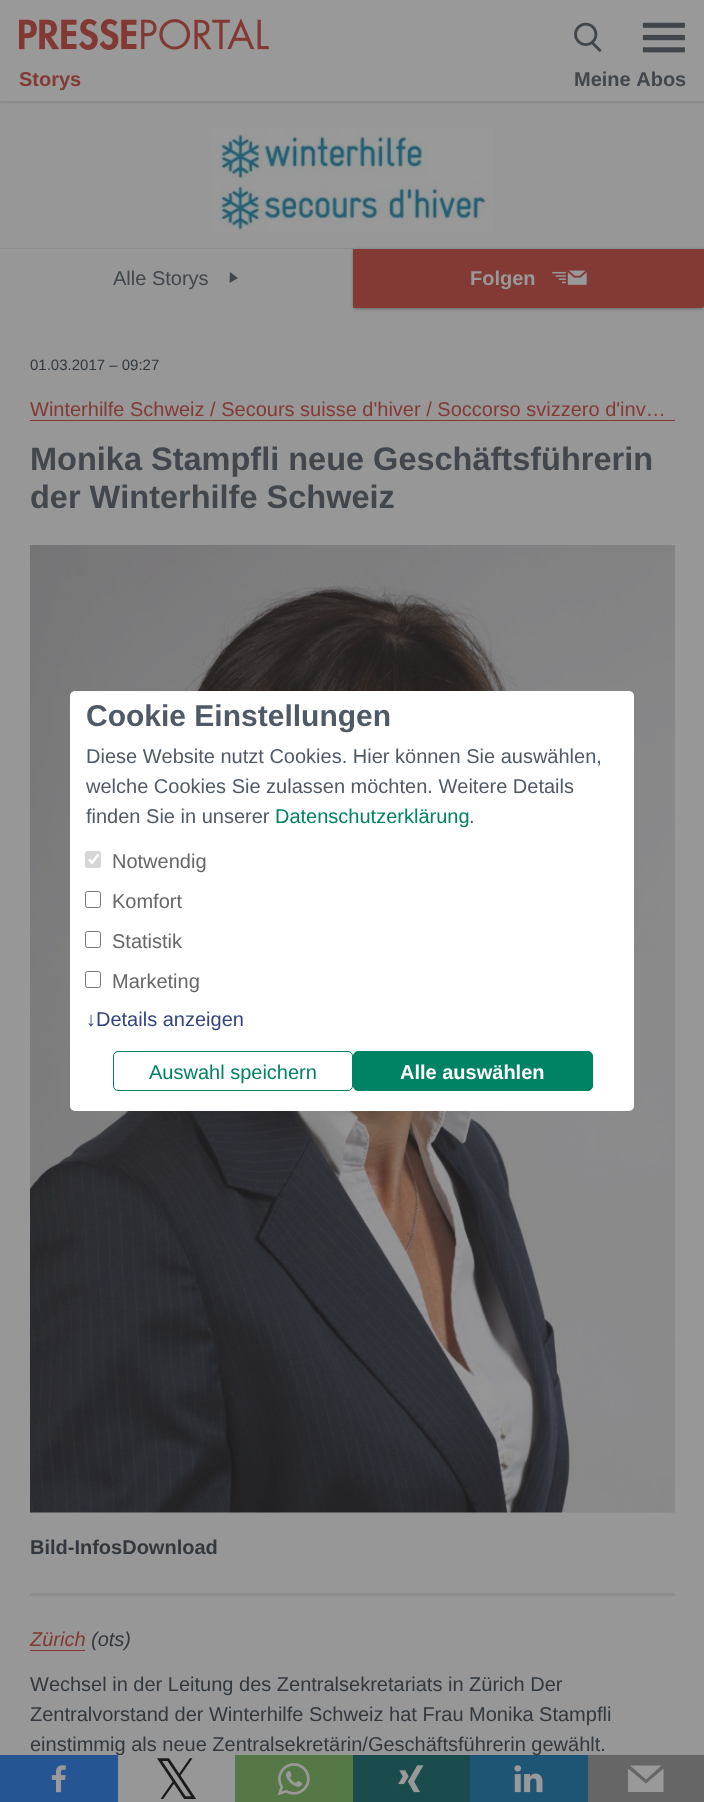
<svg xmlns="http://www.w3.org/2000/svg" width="704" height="1802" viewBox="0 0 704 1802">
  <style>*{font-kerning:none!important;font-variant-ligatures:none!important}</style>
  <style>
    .t1 { font: bold 20px Liberation Sans; fill: #833934; }
    .t2 { font: bold 20px Liberation Sans; fill: #41474d; }
    .t3 { font: 20px Liberation Sans; fill: #41474d; }
    .t4 { font: bold 20px Liberation Sans; fill: #999; }
    .t5 { font: 15px Liberation Sans; fill: #32383e; }
    .t6 { font: 20px Liberation Sans; fill: #833934; }
    .t7 { font: bold 32.5px Liberation Sans; fill: #41474d; }
    .t8 { font: bold 20px Liberation Sans; fill: #32383e; }
    .t9 { font: italic 20px Liberation Sans; fill: #833934; }
    .t10 { font: italic 20px Liberation Sans; fill: #32383e; }
    .t11 { font: 20px Liberation Sans; fill: #32383e; }
    .t12 { font: 56px DejaVu Sans; fill: #1a1a1a; }
    .t13 { font: bold 30px Liberation Sans; fill: #4f5a66; }
    .t14 { font: 20px Liberation Sans; fill: #4f5a66; }
    .t15 { font: 20px Liberation Sans; fill: #008264; }
    .t16 { font: 20px Liberation Sans; fill: #666; }
    .t17 { font: 20px Liberation Sans; fill: #324380; }
    .t18 { font: bold 20px Liberation Sans; fill: #fff; }
  </style>
  <rect width="100%" height="100%" fill="#979797"/>
  <rect x="0" y="1" width="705" height="102" fill="#41474d29" filter="blur(1px)"/>
  <rect x="0" y="0" width="704" height="101" fill="#999"/>
  <image x="19" y="18" width="250" height="32" href="images/1.png"/>
  <image x="574" y="22" width="28" height="31" href="images/2.png"/>
  <image x="642" y="22" width="43" height="31" href="images/3.png"/>
  <text x="19" y="86" class="t1">Storys</text>
  <text x="574" y="86" class="t2">Meine Abos</text>
  <image x="211" y="127" width="283" height="106" href="images/4.png"/>
  <rect x="0" y="248" width="353" height="1" fill="#8b8d8e"/>
  <text x="113" y="285" class="t3">Alle Storys</text>
  <path d="M229.5 283L230 272L238 278Z" fill="#41474d"/>
  <rect x="353" y="249" width="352" height="60" rx="4" fill="#1a1a1a3d" filter="blur(1px)"/>
  <rect x="353" y="249" width="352" height="60" rx="4" fill="#1a1a1a1f" filter="blur(2px)"/>
  <path d="M353 248H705V304C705 306 703 308 701 308H353Z" fill="#833934"/>
  <rect x="353" y="248" width="351" height="1" fill="#8b8d8e"/>
  <text x="470" y="285" class="t4">Folgen</text>
  <image x="552" y="270" width="35" height="15" href="images/5.png"/>
  <text x="30" y="370" class="t5">01.03.2017 – 09:27</text>
  <text x="30" y="416" class="t6">Winterhilfe Schweiz / Secours suisse d'hiver / Soccorso svizzero d'inv…</text>
  <rect x="30" y="420" width="645" height="1" fill="#833934"/>
  <text x="30" y="470" class="t7">Monika Stampfli neue Geschäftsführerin</text>
  <text x="30" y="508" class="t7">der Winterhilfe Schweiz</text>
  <image x="30" y="545" width="645" height="968" href="images/6.png"/>
  <rect x="30" y="1593" width="645" height="3" fill="#8b8d8e"/>
  <text x="30" y="1554" class="t8">Bild-InfosDownload</text>
  <text x="30" y="1646" class="t9">Zürich</text>
  <rect x="30" y="1650" width="55" height="1" fill="#833934"/>
  <text x="91" y="1646" class="t10">(ots)</text>
  <text x="30" y="1691" class="t11">Wechsel in der Leitung des Zentralsekretariats in Zürich Der</text>
  <text x="30" y="1721" class="t11">Zentralvorstand der Winterhilfe Schweiz hat Frau Monika Stampfli</text>
  <text x="30" y="1751" class="t11">einstimmig als neue Zentralsekretärin/Geschäftsführerin gewählt.</text>
  <rect x="118" y="1755" width="3" height="1" fill="#999"/>
  <rect x="0" y="1755" width="118" height="47" fill="#265593"/>
  <image x="51" y="1765" width="15" height="28" href="images/7.png"/>
  <text x="154" y="1799" class="t12">𝕏</text>
  <rect x="235" y="1755" width="118" height="47" fill="#567847"/>
  <image x="277" y="1763" width="33" height="33" href="images/8.png"/>
  <rect x="353" y="1755" width="117" height="47" fill="#1b4c4d"/>
  <image x="398" y="1765" width="26" height="28" href="images/9.png"/>
  <rect x="470" y="1755" width="118" height="47" fill="#1e5574"/>
  <image x="514" y="1765" width="29" height="28" href="images/10.png"/>
  <rect x="588" y="1755" width="116" height="47" fill="#666"/>
  <path d="M663.5 1792H628V1768.5L646 1783.5L663.5 1768.5ZM646 1779.5L630 1765.5H661.5Z" fill="#999"/>
  <rect x="70" y="691" width="564" height="420" rx="5" fill="#fff"/>
  <text x="86" y="726" class="t13">Cookie Einstellungen</text>
  <text x="86" y="763" class="t14">Diese Website nutzt Cookies. Hier können Sie auswählen,</text>
  <text x="86" y="793" class="t14">welche Cookies Sie zulassen möchten. Weitere Details</text>
  <text x="86" y="823" class="t14">finden Sie in unserer</text>
  <text x="275" y="823" class="t15">Datenschutzerklärung</text>
  <text x="469" y="823" class="t14">.</text>
  <rect x="85" y="851" width="16" height="17" rx="2.5" fill="#d6d6d6"/>
  <path d="M89 859.5L92 862.5L98.5 854.5" fill="none" stroke="#fff" stroke-width="2.6"/>
  <text x="112" y="868" class="t16">Notwendig</text>
  <rect x="85.5" y="891.5" width="15" height="16" rx="2" fill="none" stroke="#767676"/>
  <text x="112" y="908" class="t16">Komfort</text>
  <rect x="85.5" y="931.5" width="15" height="16" rx="2" fill="none" stroke="#767676"/>
  <text x="112" y="948" class="t16">Statistik</text>
  <rect x="85.5" y="971.5" width="15" height="16" rx="2" fill="none" stroke="#767676"/>
  <text x="112" y="988" class="t16">Marketing</text>
  <text x="86" y="1026" class="t17">↓Details anzeigen</text>
  <rect x="113.5" y="1051.5" width="239" height="39" rx="4.5" fill="none" stroke="#008264"/>
  <text x="149" y="1079" class="t15">Auswahl speichern</text>
  <rect x="353.5" y="1051.5" width="239" height="39" rx="4.5" fill="#008264" stroke="#008264"/>
  <text x="400" y="1079" class="t18">Alle auswählen</text>
</svg>
